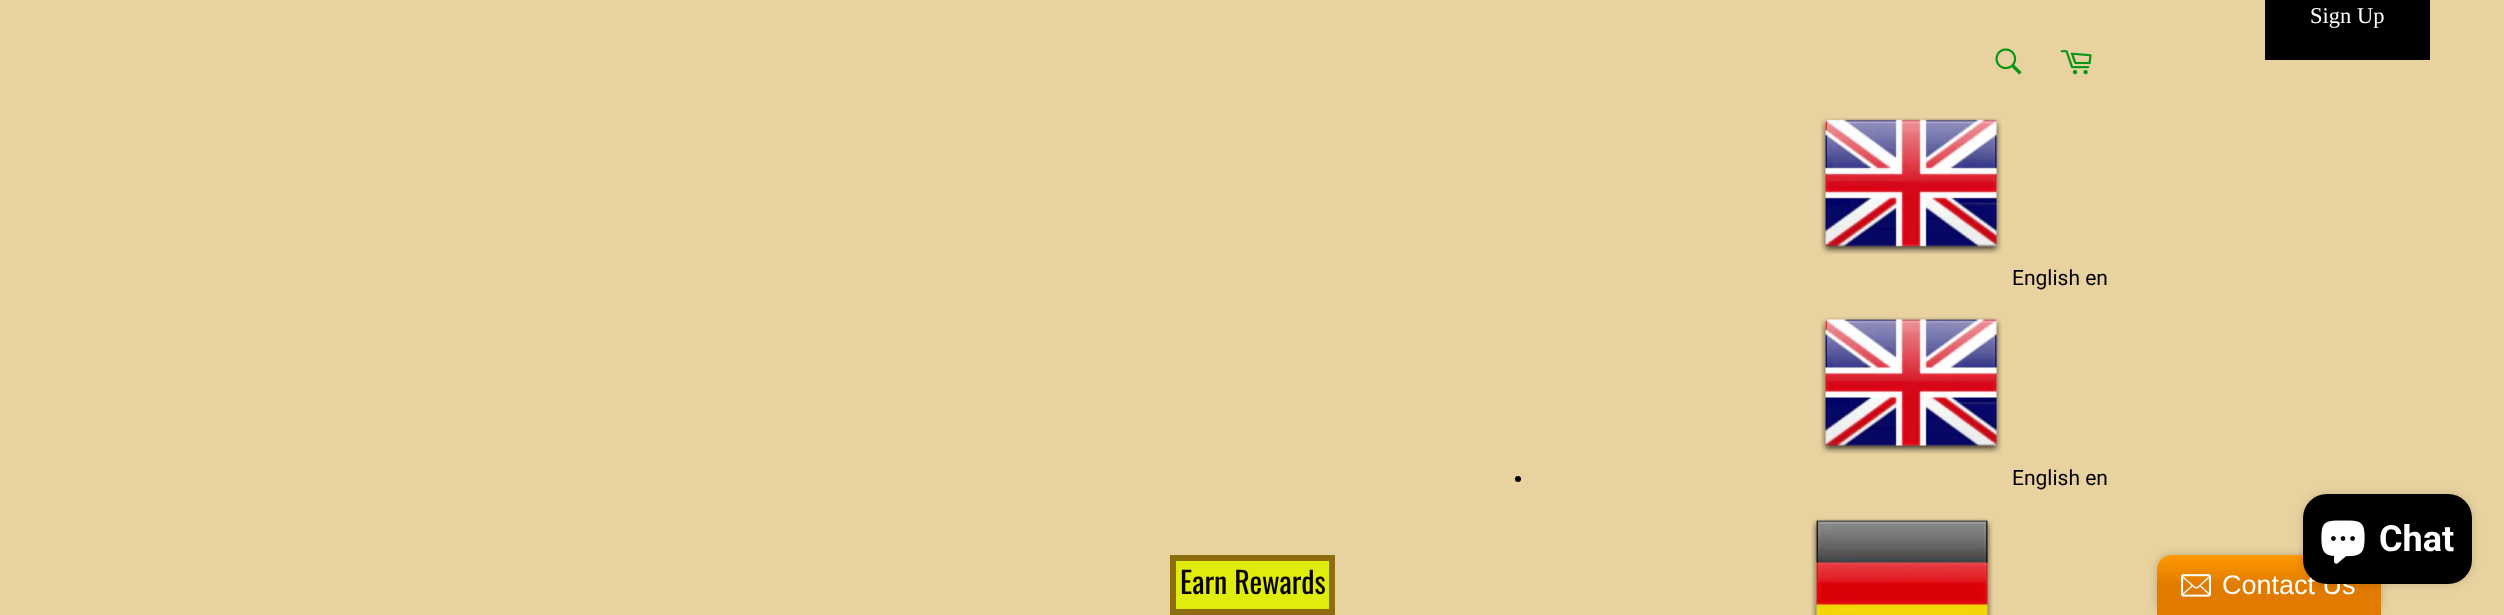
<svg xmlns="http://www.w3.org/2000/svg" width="2504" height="615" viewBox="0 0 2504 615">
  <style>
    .t1 { font: 22.5px Liberation Serif; fill: #fff; }
    .t2 { font: 21px Roboto; fill: #000; }
    .t3 { font: 27px Liberation Sans; fill: #fff; }
    .t4 { font: bold 36px Roboto; fill: #fff; }
    .t5 { font: 30px Oswald; fill: #070101; }
  </style>
  <defs>
    <linearGradient id="g1" gradientUnits="userSpaceOnUse" x1="2269" y1="555" x2="2269" y2="615"><stop offset="0" stop-color="#f90"/><stop offset="0.5" stop-color="#e17b00"/></linearGradient>
  </defs>
  <rect width="100%" height="100%" fill="#e8d29f"/>
  <rect x="2265" y="0" width="165" height="60" fill="#000"/>
  <text x="2310" y="23" class="t1">Sign Up</text>
  <image x="1995" y="48" width="27" height="27" href="images/1.png"/>
  <image x="2060" y="50" width="32" height="25" href="images/2.png"/>
  <image x="1820" y="118" width="182" height="137" href="images/3.png"/>
  <text x="2012" y="285" class="t2">English en</text>
  <image x="1820" y="317" width="182" height="137" href="images/4.png"/>
  <circle cx="1518" cy="479" r="3" fill="#000"/>
  <text x="2012" y="485" class="t2">English en</text>
  <image x="1811" y="518" width="182" height="97" href="images/5.png"/>
  <rect x="2157" y="555" width="224" height="60" rx="15" fill="#00000033" filter="blur(4px)"/>
  <path d="M2172 555H2366C2374.5 555 2381 561.5 2381 570V615H2157V570C2157 561.5 2163.5 555 2172 555Z" fill="url(#g1)"/>
  <rect x="2303" y="494" width="169" height="90" rx="24" fill="#00000026" filter="blur(4px)"/>
  <text x="2222" y="594" class="t3">Contact Us</text>
  <rect x="2303" y="494" width="169" height="90" rx="24" fill="#000"/>
  <image x="2321" y="520" width="44" height="44" href="images/6.png"/>
  <text x="2379" y="551" class="t4">Chat</text>
  <rect x="1173" y="558" width="159" height="54" fill="#dfec0c" stroke="#8d6d0d" stroke-width="6"/>
  <text x="1180" y="594" class="t5">Earn Rewards</text>
  <image x="2181" y="574" width="30" height="23" href="images/7.png"/>
</svg>
